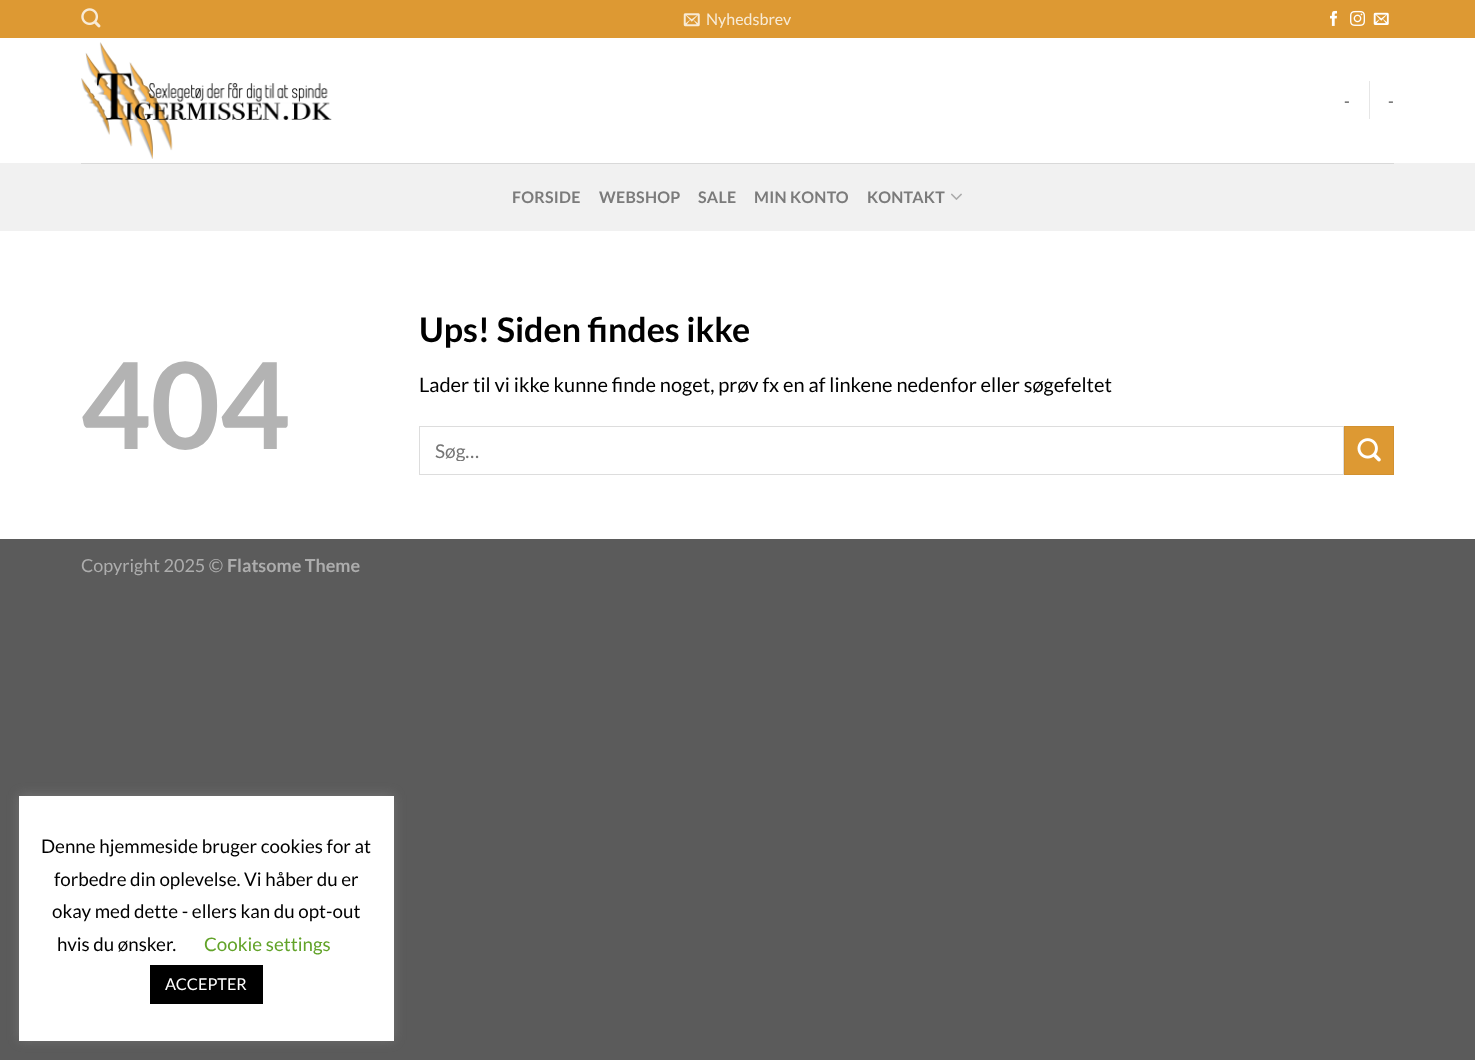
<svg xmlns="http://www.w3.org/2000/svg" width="1475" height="1060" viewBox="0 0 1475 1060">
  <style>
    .t1 { font: 16px Lato; fill: #f8ebd6; }
    .t2 { font: bold 16px Lato; letter-spacing: 0.25px; fill: #7b7b7b; }
    .t3 { font: bold 120px Lato; fill: #b3b3b3; }
    .t4 { font: bold 34px Lato; fill: #000; }
    .t5 { font: 20px Lato; fill: #000; }
    .t6 { font: 19px Lato; fill: #757575; }
    .t7 { font: 18px Lato; fill: #adadad; }
    .t8 { font: bold 18px Lato; fill: #adadad; }
    .t9 { font: 18.75px Lato; fill: #000; }
    .t10 { font: 18.75px Lato; fill: #62a329; }
    .t11 { font: 16.25px Lato; fill: #fff; }
  </style>
  <defs>
    <clipPath id="clip1"><rect x="435" y="439" width="889" height="22"/></clipPath>
  </defs>
  <rect width="100%" height="100%" fill="#5b5b5b"/>
  <rect x="0" y="38" width="1475" height="501" fill="#fff"/>
  <rect x="0" y="0" width="1475" height="38" fill="#d93"/>
  <image x="81" y="8" width="20" height="20" href="images/1.png"/>
  <image x="683" y="13" width="17" height="14" href="images/2.png"/>
  <text x="706" y="25" class="t1">Nyhedsbrev</text>
  <image x="1330" y="10" width="7" height="16" href="images/3.png"/>
  <image x="1350" y="10" width="15" height="16" href="images/4.png"/>
  <image x="1373" y="12" width="16" height="13" href="images/5.png"/>
  <image x="81" y="42" width="251" height="117" href="images/6.png"/>
  <text x="1344" y="107" class="t2">-</text>
  <rect x="1369" y="81" width="1" height="38" fill="#e6e6e6"/>
  <text x="1388" y="107" class="t2">-</text>
  <rect x="0" y="163" width="1475" height="68" fill="#f1f1f1"/>
  <rect x="81" y="163" width="1313" height="1" fill="#d9d9d9"/>
  <text x="512" y="203" class="t2">FORSIDE</text>
  <text x="599" y="203" class="t2">WEBSHOP</text>
  <text x="698" y="203" class="t2">SALE</text>
  <text x="754" y="203" class="t2">MIN KONTO</text>
  <text x="867" y="203" class="t2">KONTAKT</text>
  <image x="951" y="193" width="11" height="7" href="images/7.png"/>
  <text x="81" y="449" class="t3">404</text>
  <text x="419" y="342" class="t4">Ups! Siden findes ikke</text>
  <text x="419" y="392" class="t5">Lader til vi ikke kunne finde noget, prøv fx en af linkene nedenfor eller søgefeltet</text>
  <rect x="419.5" y="426.5" width="924" height="48" fill="none" stroke="#ddd"/>
  <g clip-path="url(#clip1)">
    <text x="435" y="458" class="t6">Søg…</text>
  </g>
  <rect x="1344.5" y="426.5" width="49" height="48" fill="#d93" stroke="#d29130"/>
  <image x="1357" y="438" width="24" height="24" href="images/8.png"/>
  <text x="81" y="572" class="t7">Copyright 2025 ©</text>
  <text x="227" y="572" class="t8">Flatsome Theme</text>
  <rect x="19" y="795" width="375" height="245" fill="#acabab4d" filter="blur(6px)"/>
  <rect x="19" y="796" width="375" height="245" fill="#fff"/>
  <text x="41" y="853" class="t9">Denne hjemmeside bruger cookies for at</text>
  <text x="54" y="886" class="t9">forbedre din oplevelse. Vi håber du er</text>
  <text x="52" y="918" class="t9">okay med dette - ellers kan du opt-out</text>
  <text x="57" y="951" class="t9">hvis du ønsker.</text>
  <text x="204" y="951" class="t10">Cookie settings</text>
  <rect x="150" y="965" width="113" height="39" fill="#000"/>
  <text x="165" y="990" class="t11">ACCEPTER</text>
</svg>
